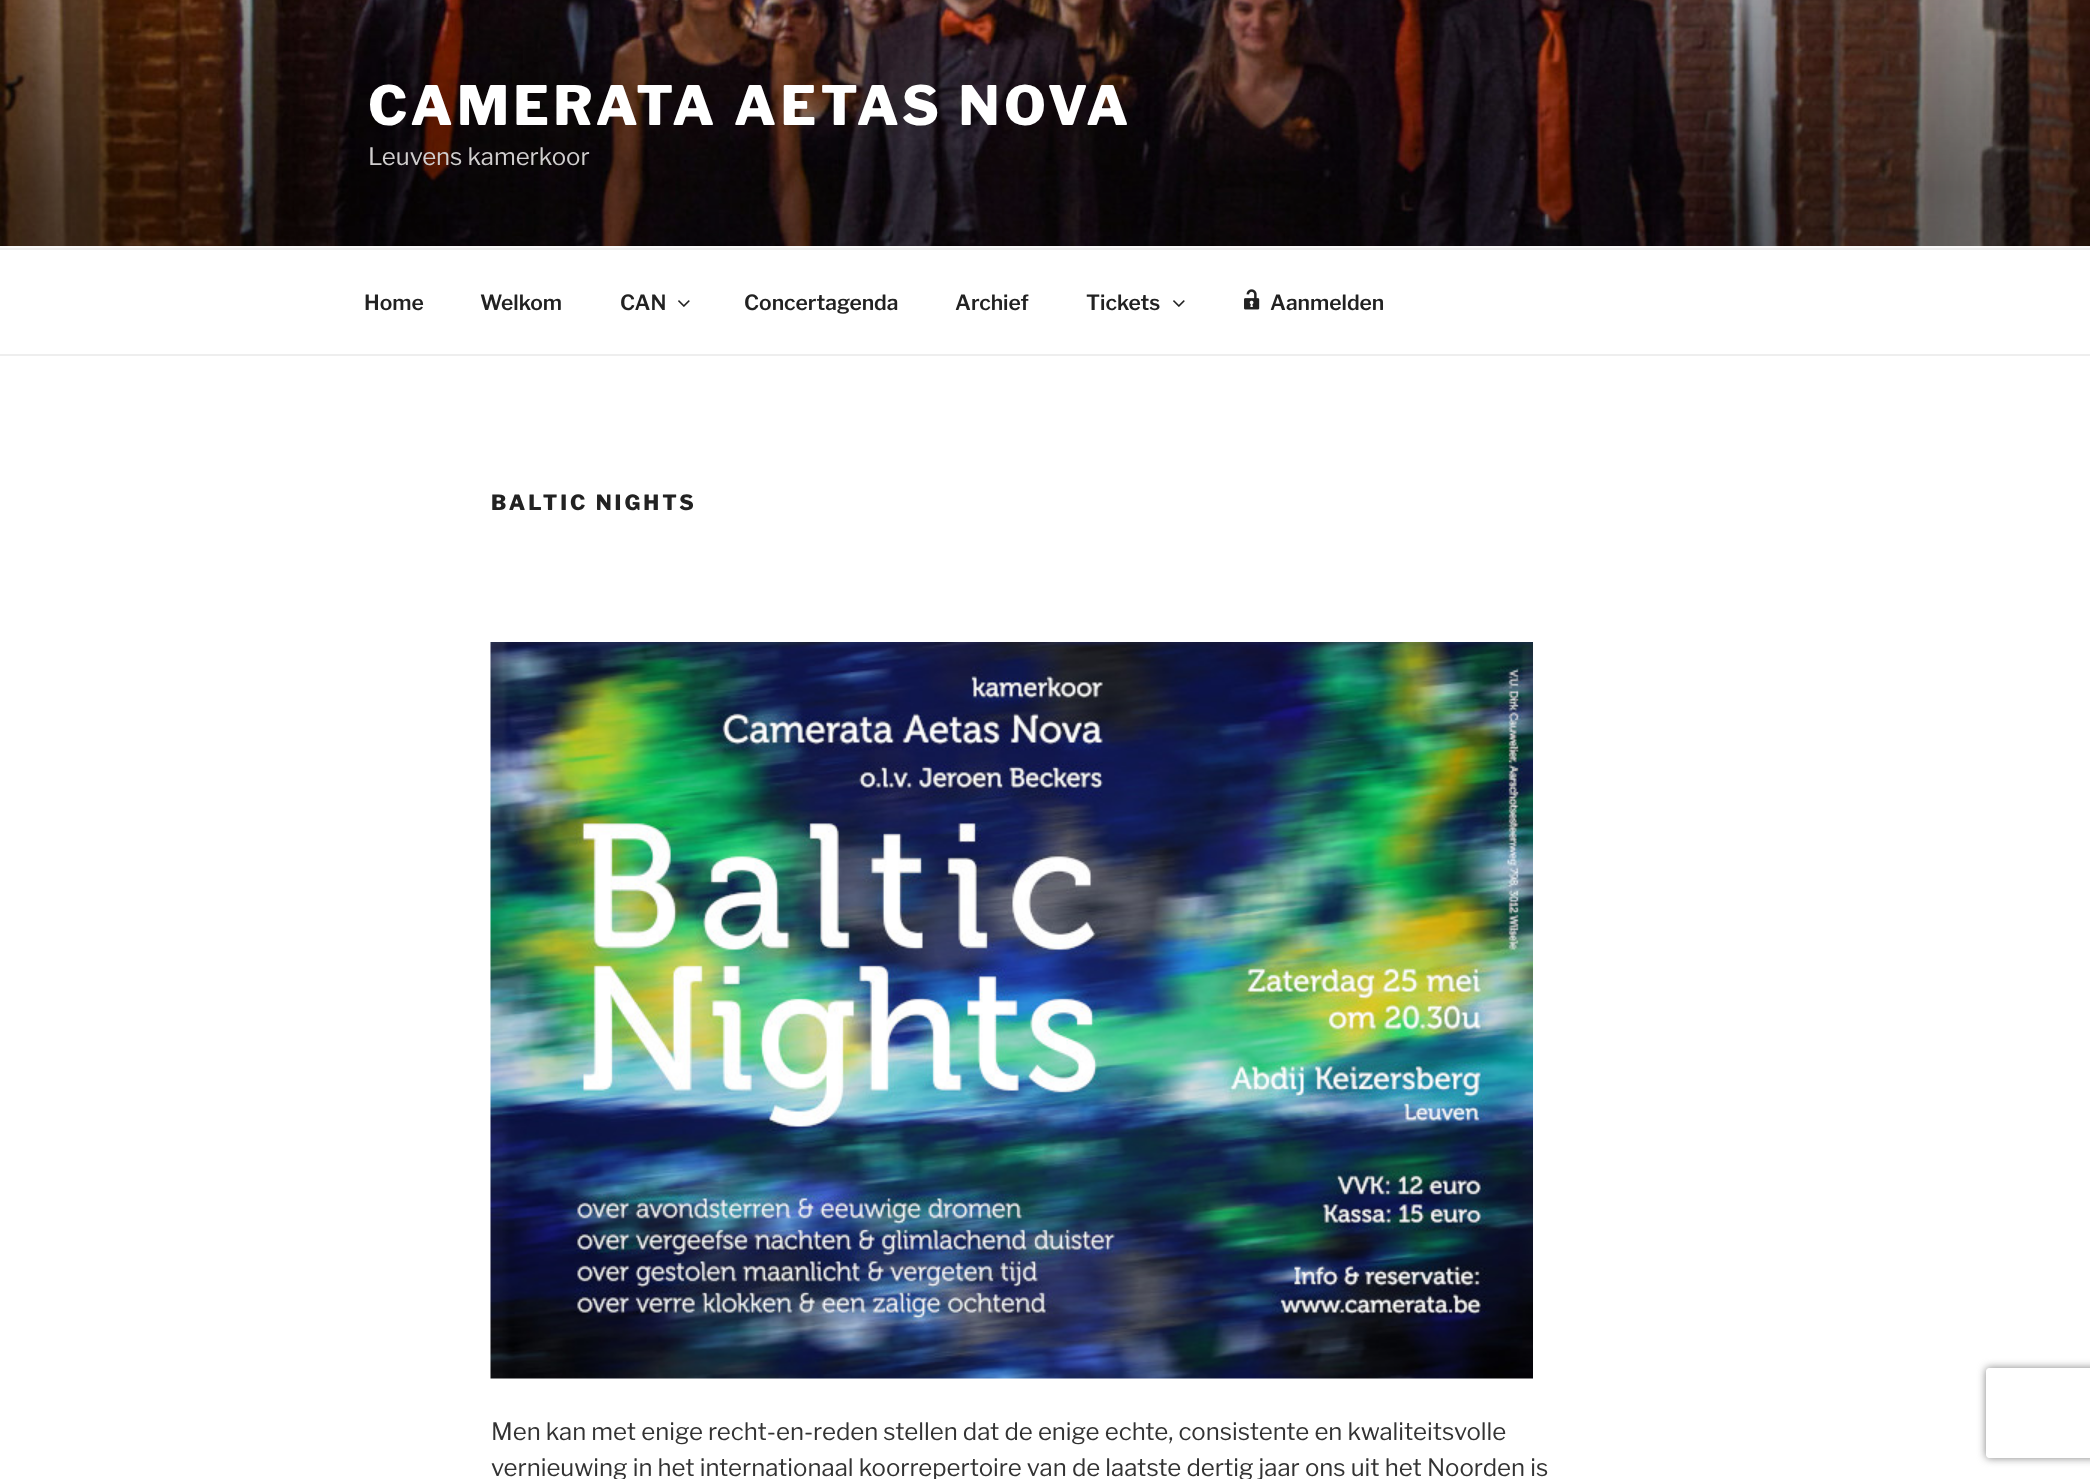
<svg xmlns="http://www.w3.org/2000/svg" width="2090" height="1479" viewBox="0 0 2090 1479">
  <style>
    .t1 { font: 100 54px Libre Franklin; letter-spacing: 4.3px; fill: #fff; }
    .t2 { font: 100 24px 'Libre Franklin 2'; fill: #d0cece; }
    .t3 { font: 100 21px 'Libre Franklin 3'; fill: #222; }
    .t4 { font: 100 21px Libre Franklin; letter-spacing: 3px; fill: #222; }
    .t5 { font: 100 24px 'Libre Franklin 2'; fill: #333; }
  </style>
  <defs>
    <clipPath id="clip1"><path d="M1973 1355H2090V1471H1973ZM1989 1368H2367C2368.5 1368 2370 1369.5 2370 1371V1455C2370 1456.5 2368.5 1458 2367 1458H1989C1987.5 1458 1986 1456.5 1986 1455V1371C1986 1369.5 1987.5 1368 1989 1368Z" clip-rule="evenodd"/></clipPath>
  </defs>
  <rect width="100%" height="100%" fill="#fff"/>
  <rect x="0" y="246" width="2090" height="2" fill="#fafafa"/>
  <image x="0" y="0" width="2090" height="246" href="images/1.png"/>
  <text x="368" y="125" class="t1">CAMERATA AETAS NOVA</text>
  <text x="368" y="165" class="t2">Leuvens kamerkoor</text>
  <rect x="0" y="248" width="2090" height="2" fill="#eee"/>
  <rect x="0" y="354" width="2090" height="2" fill="#eee"/>
  <text x="364" y="310" class="t3">Home</text>
  <text x="480" y="310" class="t3">Welkom</text>
  <text x="620" y="310" class="t3">CAN</text>
  <image x="678" y="300" width="12" height="7" href="images/2.png"/>
  <text x="744" y="310" class="t3">Concertagenda</text>
  <text x="955" y="310" class="t3">Archief</text>
  <text x="1086" y="310" class="t3">Tickets</text>
  <image x="1173" y="300" width="12" height="7" href="images/2.png"/>
  <image x="1244" y="289" width="16" height="21" href="images/3.png"/>
  <text x="1270" y="310" class="t3">Aanmelden</text>
  <text x="491" y="510" class="t4">BALTIC NIGHTS</text>
  <image x="490" y="642" width="1043" height="737" href="images/4.png"/>
  <text x="491" y="1440" class="t5">Men kan met enige recht-en-reden stellen dat de enige echte, consistente en kwaliteitsvolle</text>
  <text x="491" y="1476" class="t5">vernieuwing in het internationaal koorrepertoire van de laatste dertig jaar ons uit het Noorden is</text>
  <g clip-path="url(#clip1)">
    <rect x="1986" y="1368" width="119" height="90" rx="3" fill="#808080" filter="blur(4px)"/>
  </g>
</svg>
